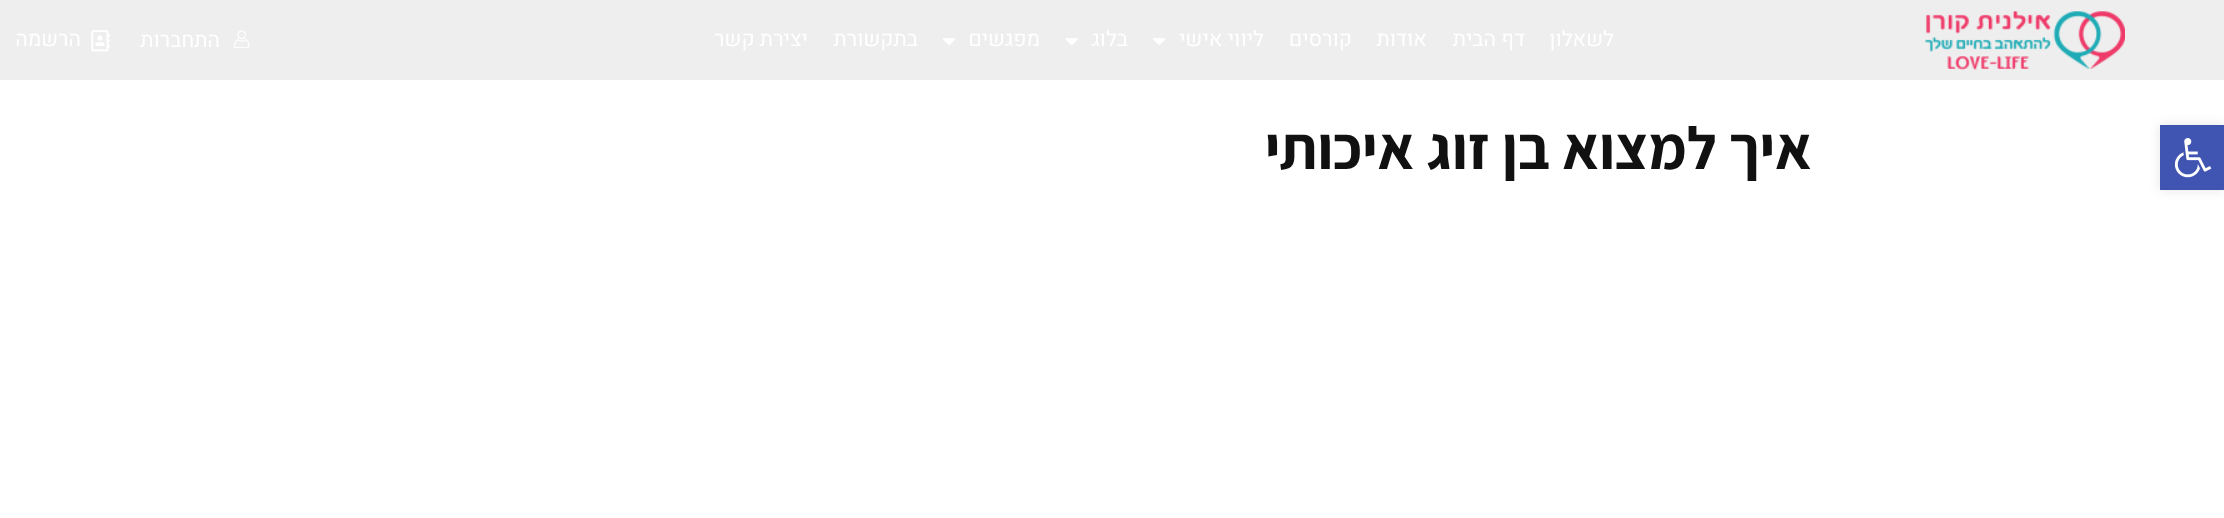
<svg xmlns="http://www.w3.org/2000/svg" width="2224" height="518" viewBox="0 0 2224 518">
  <style>
    .t1 { font: 21.25px Heebo; direction: rtl; fill: #fff; }
    .t2 { font: bold 60px Assistant; direction: rtl; fill: #111; }
  </style>
  <rect width="100%" height="100%" fill="#fff"/>
  <rect x="2160" y="125" width="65" height="65" fill="#0000001a" filter="blur(6px)"/>
  <rect x="2160" y="125" width="64" height="65" fill="#4054b2"/>
  <image x="2174" y="138" width="38" height="40" href="images/1.png"/>
  <rect x="0" y="0" width="2224" height="80" fill="#eee"/>
  <image x="1925" y="11" width="200" height="60" href="images/2.png"/>
  <text x="1614" y="46" class="t1">לשאלון</text>
  <text x="1525" y="46" class="t1">דף הבית</text>
  <text x="1427" y="46" class="t1">אודות</text>
  <text x="1352" y="46" class="t1">קורסים</text>
  <text x="1264" y="46" class="t1">ליווי אישי</text>
  <image x="1153" y="38" width="12" height="7" href="images/3.png"/>
  <text x="1128" y="46" class="t1">בלוג</text>
  <image x="1065" y="38" width="13" height="7" href="images/4.png"/>
  <text x="1040" y="46" class="t1">מפגשים</text>
  <image x="943" y="38" width="12" height="7" href="images/3.png"/>
  <text x="918" y="46" class="t1">בתקשורת</text>
  <text x="808" y="46" class="t1">יצירת קשר</text>
  <image x="234" y="30" width="16" height="18" href="images/5.png"/>
  <text x="220" y="47" class="t1">התחברות</text>
  <image x="91" y="30" width="19" height="22" href="images/6.png"/>
  <text x="81" y="46" class="t1">הרשמה</text>
  <text x="1812" y="169" class="t2">איך למצוא בן זוג איכותי</text>
</svg>
